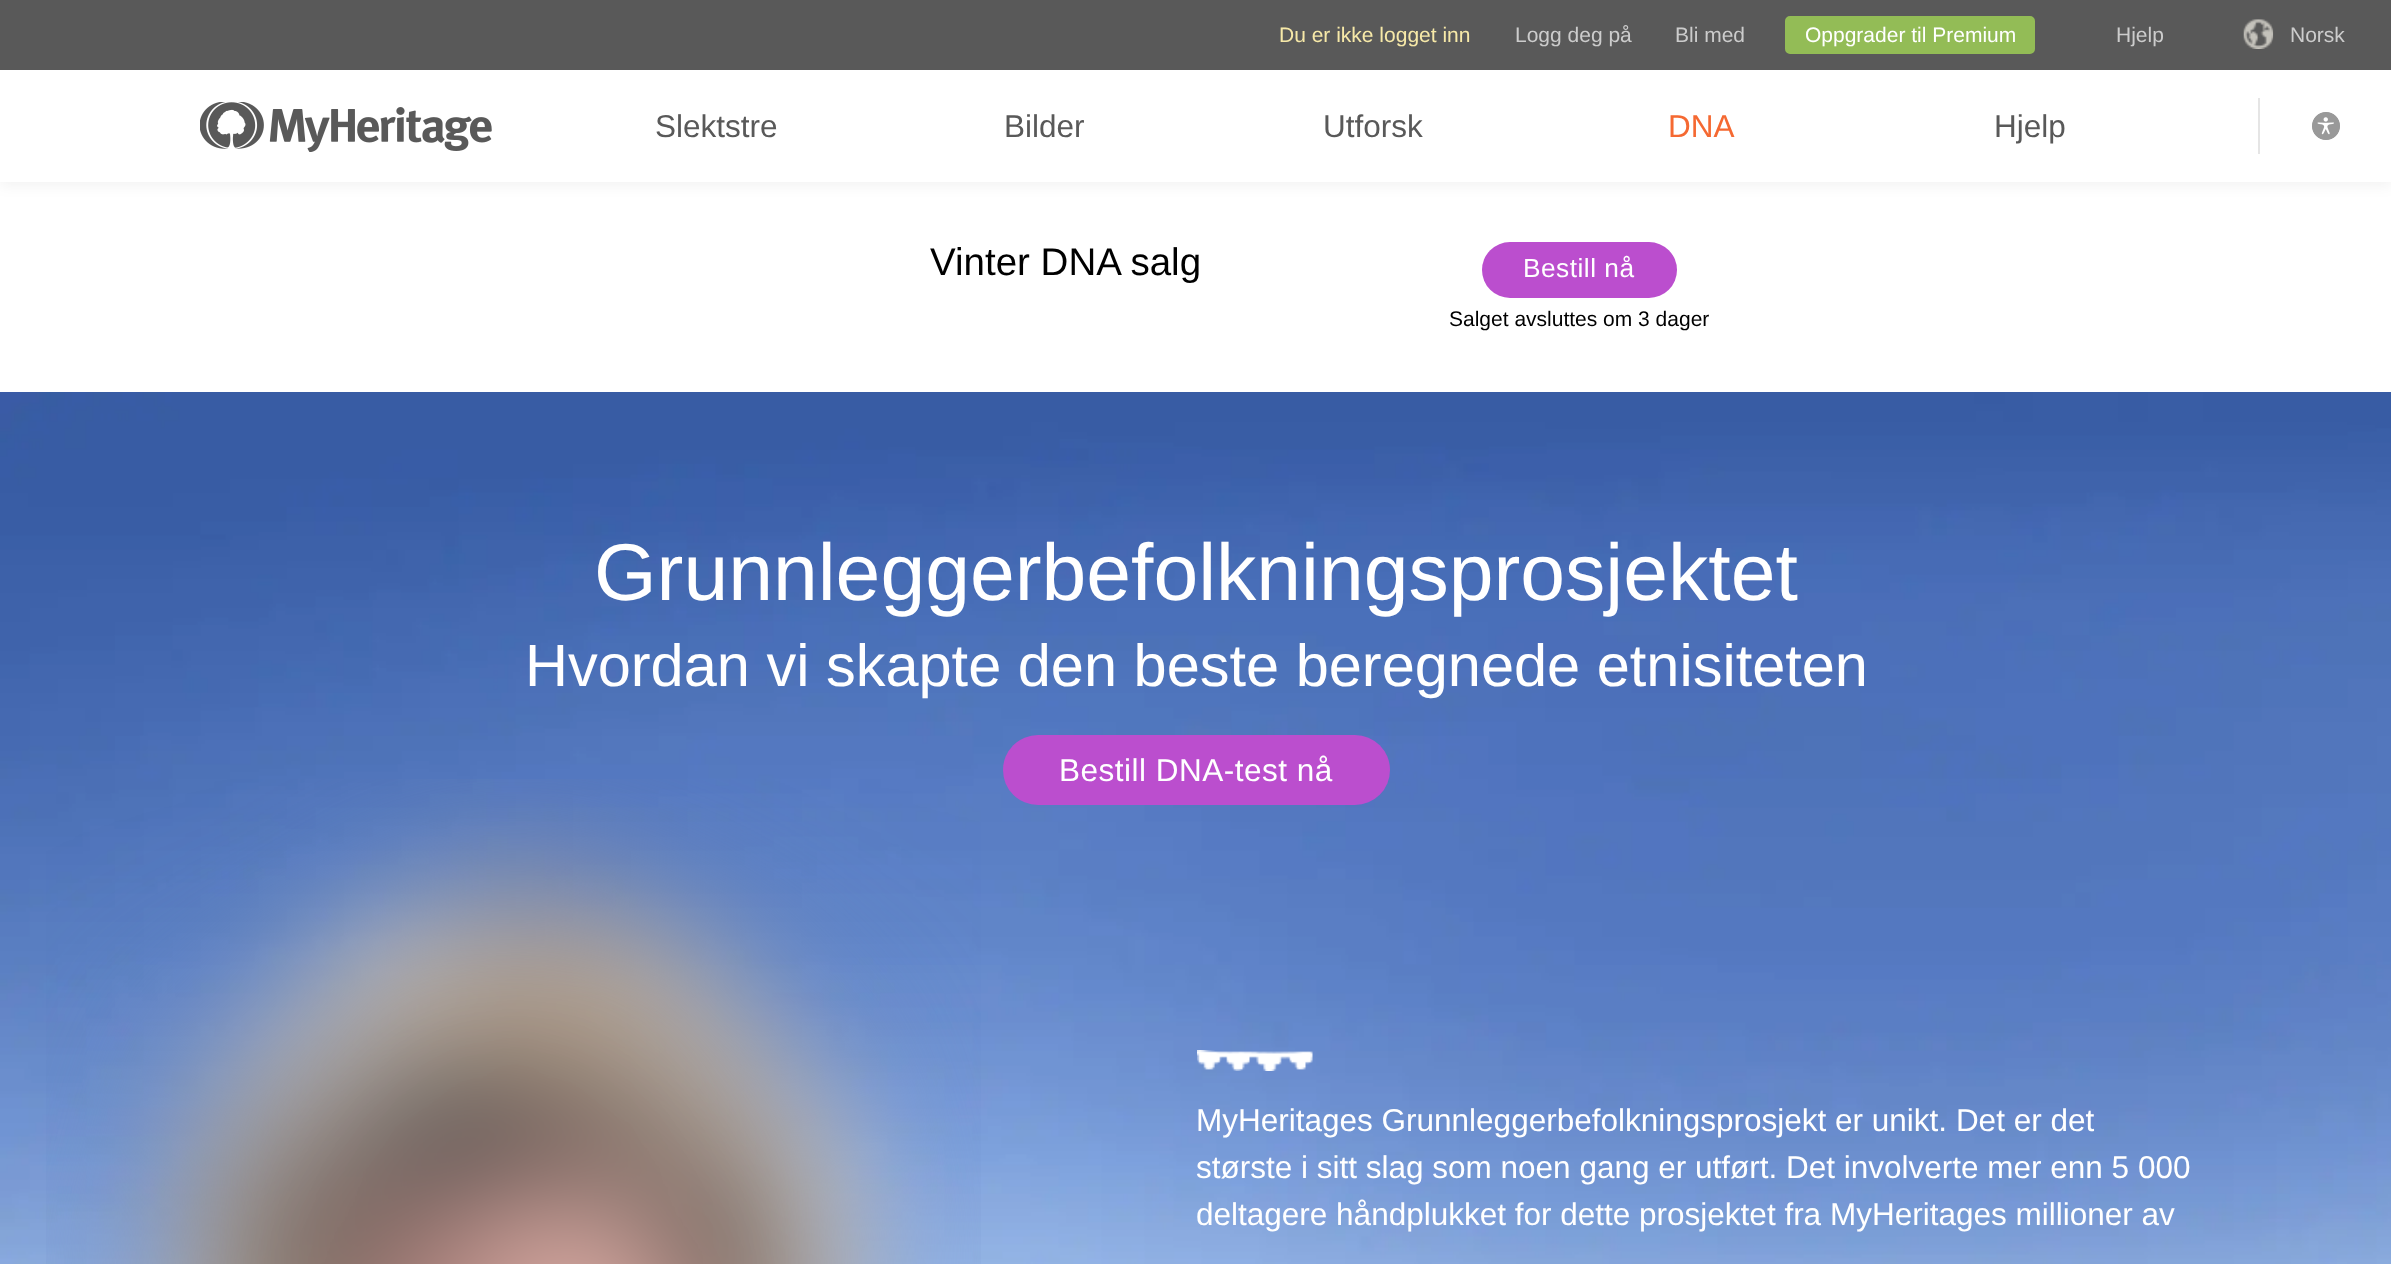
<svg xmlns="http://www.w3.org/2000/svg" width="2391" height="1264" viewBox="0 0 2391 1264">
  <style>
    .t1 { font: 21px Liberation Sans; fill: #f7e9a8; }
    .t2 { font: 21px Liberation Sans; fill: #ccc; }
    .t3 { font: 21px Liberation Sans; fill: #fff; }
    .t4 { font: 31.5px Liberation Sans; fill: #595959; }
    .t5 { font: 31.5px Liberation Sans; fill: #f56932; }
    .t6 { font: 38.5px Liberation Sans; fill: #000; }
    .t7 { font: 26.25px Liberation Sans; letter-spacing: 0.5px; fill: #fff; }
    .t8 { font: 21px Liberation Sans; fill: #000; }
    .t9 { font: 80.5px Liberation Sans; fill: #fff; }
    .t10 { font: 59.5px Liberation Sans; fill: #fff; }
    .t11 { font: 31.5px Liberation Sans; letter-spacing: 0.5px; fill: #fff; }
    .t12 { font: 31.5px Liberation Sans; fill: #fff; }
  </style>
  <rect width="100%" height="100%" fill="#fff"/>
  <rect x="0" y="4" width="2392" height="182" fill="#0000000d" filter="blur(7px)"/>
  <rect x="0" y="70" width="2391" height="112" fill="#fff"/>
  <rect x="0" y="0" width="2391" height="70" fill="#595959"/>
  <text x="1279" y="42" class="t1">Du er ikke logget inn</text>
  <text x="1515" y="42" class="t2">Logg deg på</text>
  <text x="1675" y="42" class="t2">Bli med</text>
  <rect x="1786" y="17" width="248" height="36" rx="4" fill="#93bc56" stroke="#93bc56" stroke-width="2"/>
  <text x="1805" y="42" class="t3">Oppgrader til Premium</text>
  <text x="2116" y="42" class="t2">Hjelp</text>
  <image x="2243" y="19" width="31" height="30" href="images/1.png"/>
  <text x="2290" y="42" class="t2">Norsk</text>
  <image x="200" y="102" width="292" height="50" href="images/2.png"/>
  <text x="655" y="137" class="t4">Slektstre</text>
  <text x="1004" y="137" class="t4">Bilder</text>
  <text x="1323" y="137" class="t4">Utforsk</text>
  <text x="1668" y="137" class="t5">DNA</text>
  <text x="1994" y="137" class="t4">Hjelp</text>
  <rect x="2258" y="98" width="2" height="56" fill="#e5e5e5"/>
  <image x="2312" y="112" width="28" height="28" href="images/3.png"/>
  <image x="2312" y="112" width="28" height="28" href="images/4.png"/>
  <text x="930" y="275" class="t6">Vinter DNA salg</text>
  <rect x="1482" y="242" width="195" height="56" rx="28" fill="#bb4ece"/>
  <text x="1523" y="277" class="t7">Bestill nå</text>
  <text x="1449" y="326" class="t8">Salget avsluttes om 3 dager</text>
  <image x="0" y="392" width="2391" height="872" href="images/5.png"/>
  <text x="594" y="600" class="t9">Grunnleggerbefolkningsprosjektet</text>
  <text x="525" y="686" class="t10">Hvordan vi skapte den beste beregnede etnisiteten</text>
  <rect x="1003" y="735" width="387" height="70" rx="35" fill="#bb4ece"/>
  <text x="1059" y="781" class="t11">Bestill DNA-test nå</text>
  <image x="46" y="779" width="935" height="485" href="images/6.png"/>
  <image x="1197" y="1050" width="116" height="21" href="images/7.png"/>
  <text x="1196" y="1131" class="t12">MyHeritages Grunnleggerbefolkningsprosjekt er unikt. Det er det</text>
  <text x="1196" y="1178" class="t12">største i sitt slag som noen gang er utført. Det involverte mer enn 5 000</text>
  <text x="1196" y="1225" class="t12">deltagere håndplukket for dette prosjektet fra MyHeritages millioner av</text>
</svg>
